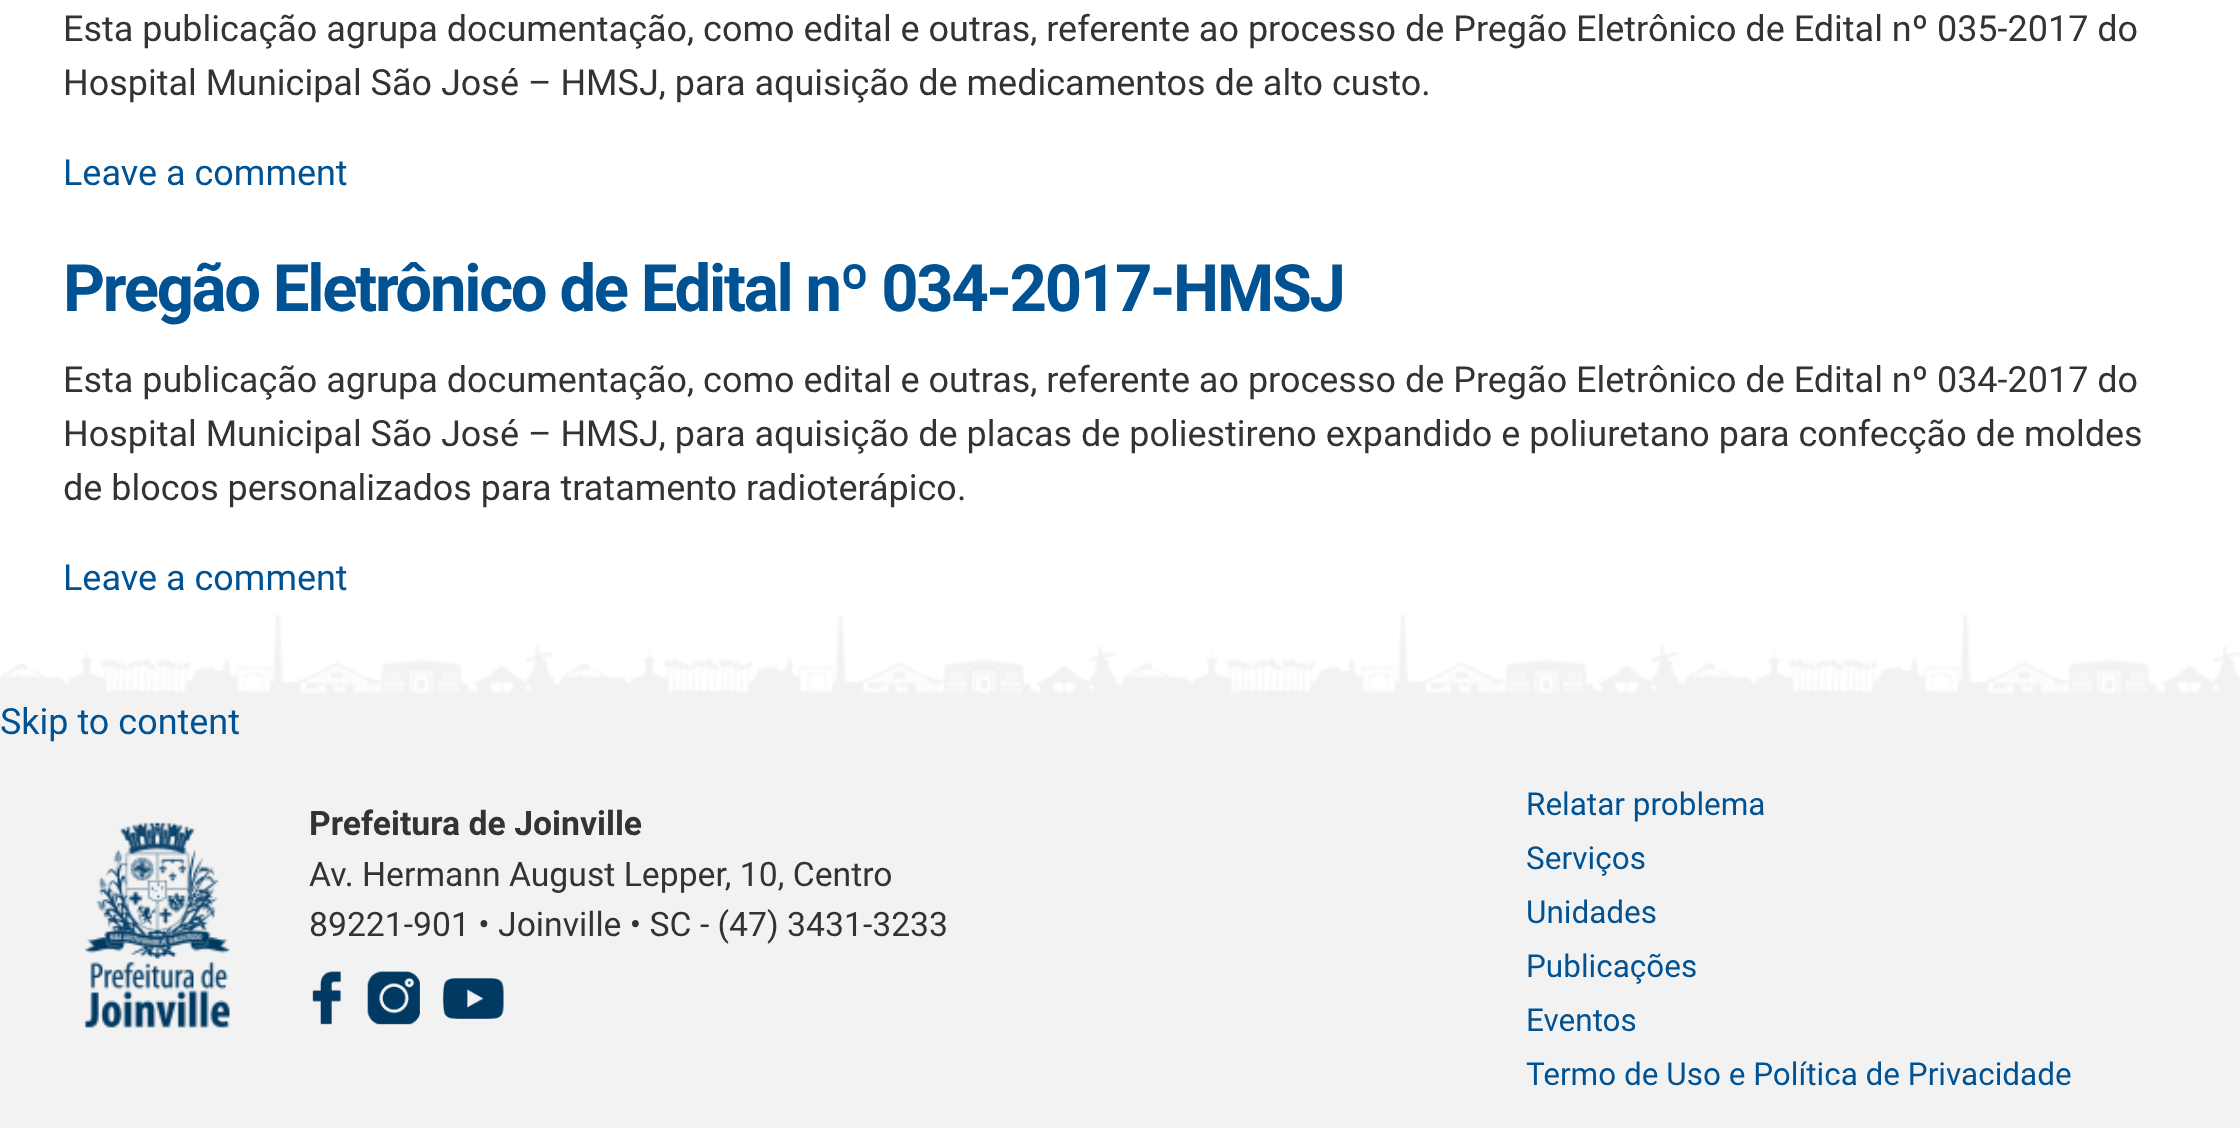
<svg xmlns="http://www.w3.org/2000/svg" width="2240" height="1128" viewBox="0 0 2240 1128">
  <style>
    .t1 { font: 36px Roboto; fill: #333; }
    .t2 { font: 36px Roboto; fill: #005293; }
    .t3 { font: bold 65.25px Roboto; letter-spacing: -2.3px; fill: #005293; }
    .t4 { font: bold 33.75px Roboto; fill: #333; }
    .t5 { font: 33.75px Roboto; fill: #333; }
    .t6 { font: 31.5px Roboto; fill: #005293; }
  </style>
  <rect width="100%" height="100%" fill="#fff"/>
  <text x="63" y="41" class="t1">Esta publicação agrupa documentação, como edital e outras, referente ao processo de Pregão Eletrônico de Edital nº 035-2017 do</text>
  <text x="63" y="95" class="t1">Hospital Municipal São José – HMSJ, para aquisição de medicamentos de alto custo.</text>
  <text x="63" y="185" class="t2">Leave a comment</text>
  <text x="63" y="311" class="t3">Pregão Eletrônico de Edital nº 034-2017-HMSJ</text>
  <text x="63" y="392" class="t1">Esta publicação agrupa documentação, como edital e outras, referente ao processo de Pregão Eletrônico de Edital nº 034-2017 do</text>
  <text x="63" y="446" class="t1">Hospital Municipal São José – HMSJ, para aquisição de placas de poliestireno expandido e poliuretano para confecção de moldes</text>
  <text x="63" y="500" class="t1">de blocos personalizados para tratamento radioterápico.</text>
  <text x="63" y="590" class="t2">Leave a comment</text>
  <rect x="0" y="695" width="2240" height="433" fill="#f2f2f2"/>
  <text x="0" y="734" class="t2">Skip to content</text>
  <image x="0" y="614" width="2240" height="81" href="images/1.png"/>
  <image x="84" y="822" width="146" height="206" href="images/2.png"/>
  <text x="309" y="835" class="t4">Prefeitura de Joinville</text>
  <text x="309" y="886" class="t5">Av. Hermann August Lepper, 10, Centro</text>
  <text x="309" y="936" class="t5">89221-901 • Joinville • SC - (47) 3431-3233</text>
  <image x="312" y="971" width="29" height="54" href="images/3.png"/>
  <image x="367" y="971" width="53" height="54" href="images/4.png"/>
  <image x="442" y="978" width="62" height="41" href="images/5.png"/>
  <text x="1526" y="815" class="t6">Relatar problema</text>
  <text x="1526" y="869" class="t6">Serviços</text>
  <text x="1526" y="923" class="t6">Unidades</text>
  <text x="1526" y="977" class="t6">Publicações</text>
  <text x="1526" y="1031" class="t6">Eventos</text>
  <text x="1526" y="1085" class="t6">Termo de Uso e Política de Privacidade</text>
</svg>
